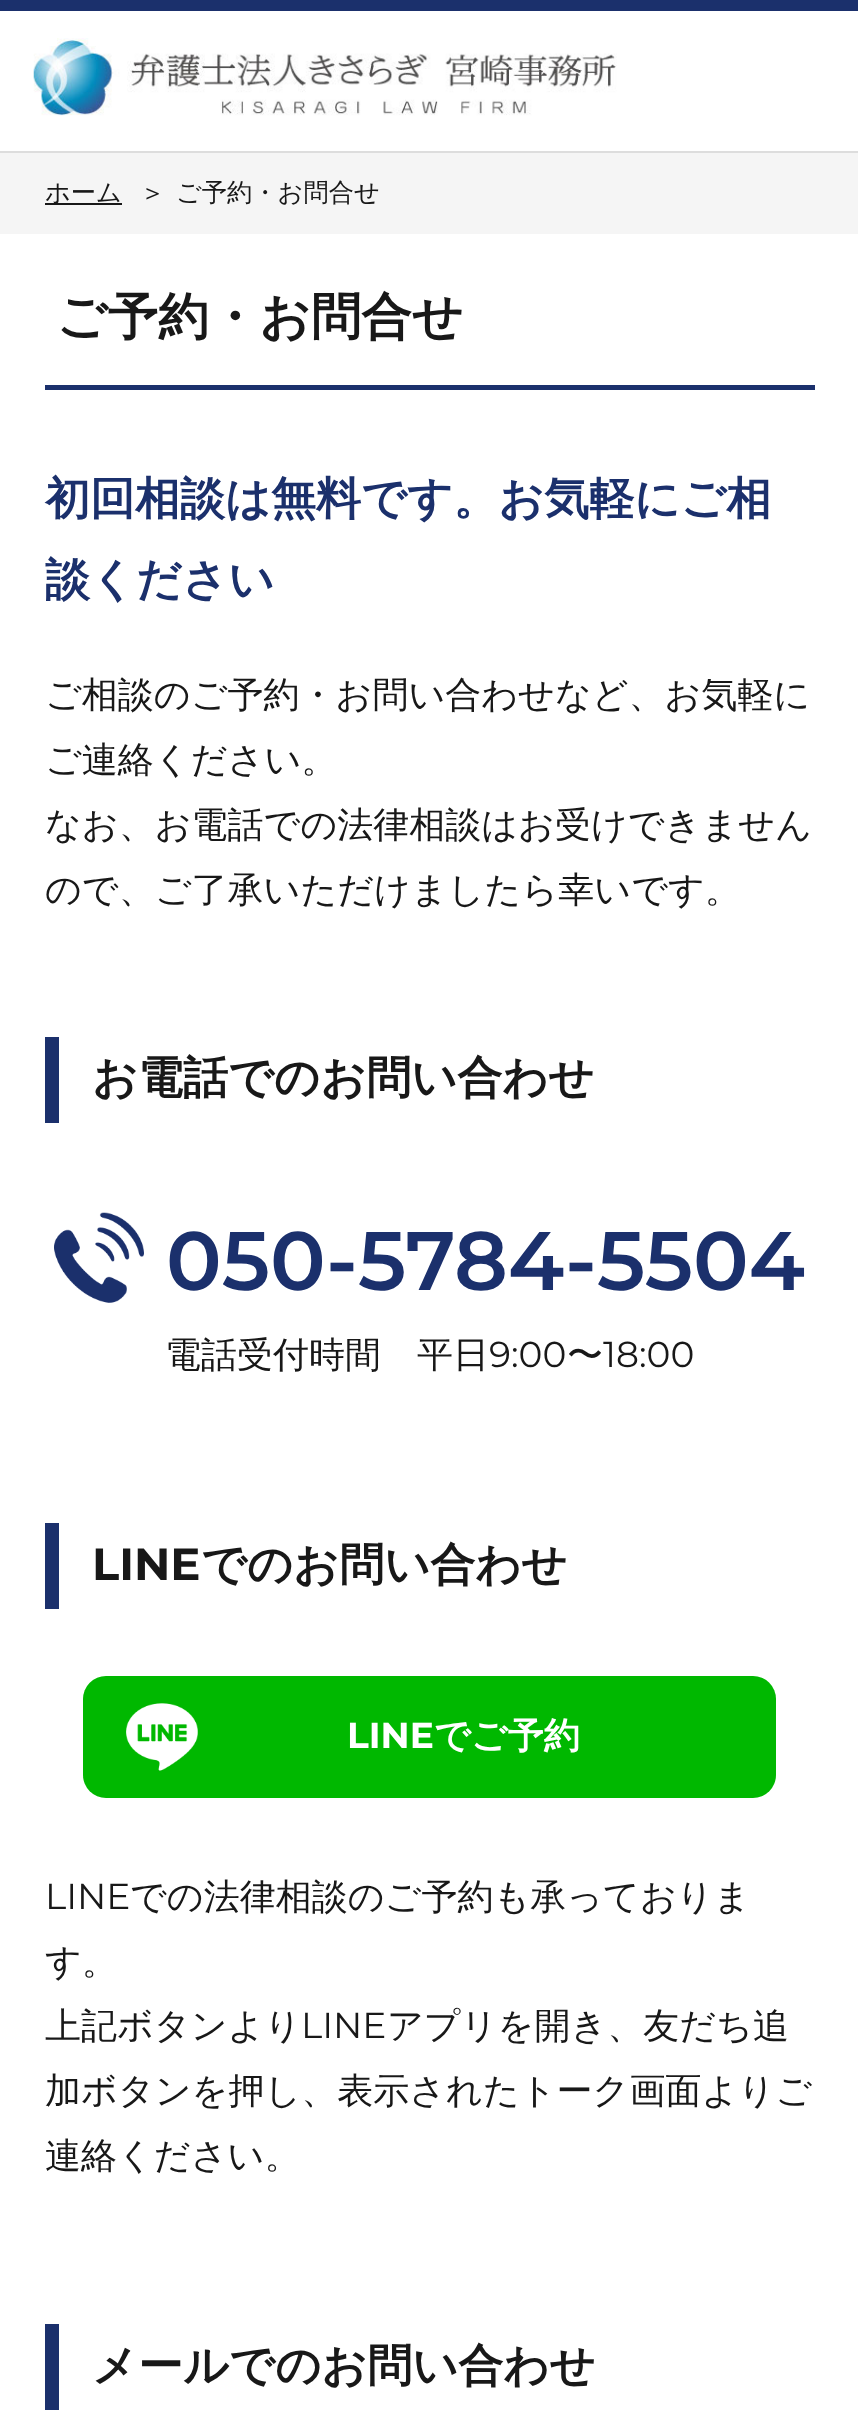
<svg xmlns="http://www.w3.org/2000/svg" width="858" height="2431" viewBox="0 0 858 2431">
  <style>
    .t1 { font: 500 25.25px WenQuanYi Zen Hei; fill: #181818; }
    .t2 { font: bold 50.5px WenQuanYi Zen Hei; fill: #181818; }
    .t3 { font: bold 45px WenQuanYi Zen Hei; fill: #1b306c; }
    .t4 { font: 500 36px WenQuanYi Zen Hei; fill: #181818; }
    .t5 { font: bold 45px WenQuanYi Zen Hei; fill: #181818; }
    .t6 { font: 600 82.75px Montserrat; fill: #1b306c; }
    .t7 { font: 36px Montserrat; fill: #181818; }
    .t8 { font: bold 45px Montserrat; fill: #181818; }
    .t9 { font: bold 36px Montserrat; fill: #fff; }
    .t10 { font: bold 36px WenQuanYi Zen Hei; fill: #fff; }
  </style>
  <rect width="100%" height="100%" fill="#fff"/>
  <rect x="0" y="0" width="858" height="11" fill="#1b306c"/>
  <image x="33" y="38" width="584" height="78" href="images/1.png"/>
  <rect x="0" y="153" width="858" height="81" fill="#f5f5f5"/>
  <rect x="0" y="151" width="858" height="2" fill="#ddd"/>
  <rect x="45" y="203" width="77" height="2" fill="#181818"/>
  <text x="45" y="201" class="t1">ホーム</text>
  <text x="140" y="201" class="t1">＞</text>
  <text x="176" y="201" class="t1">ご予約・お問合せ</text>
  <rect x="45" y="385" width="770" height="5" fill="#1b306c"/>
  <text x="56" y="334" class="t2">ご予約・お問合せ</text>
  <text x="45" y="514" class="t3">初回相談は無料です。お気軽にご相</text>
  <text x="45" y="595" class="t3">談ください</text>
  <text x="45" y="707" class="t4">ご相談のご予約・お問い合わせなど、お気軽に</text>
  <text x="45" y="772" class="t4">ご連絡ください。</text>
  <text x="45" y="837" class="t4">なお、お電話での法律相談はお受けできません</text>
  <text x="45" y="902" class="t4">ので、ご了承いただけましたら幸いです。</text>
  <rect x="45" y="1037" width="14" height="86" fill="#1b306c"/>
  <text x="92" y="1093" class="t5">お電話でのお問い合わせ</text>
  <image x="54" y="1212" width="90" height="91" href="images/2.png"/>
  <text x="166" y="1290" class="t6">050-5784-5504</text>
  <text x="165" y="1367" class="t4">電話受付時間</text>
  <text x="417" y="1367" class="t4">平日</text>
  <text x="489" y="1367" class="t7">9:00</text>
  <text x="567" y="1367" class="t4">〜</text>
  <text x="603" y="1367" class="t7">18:00</text>
  <rect x="45" y="1523" width="14" height="86" fill="#1b306c"/>
  <text x="92" y="1580" class="t8">LINE</text>
  <text x="201" y="1580" class="t5">でのお問い合わせ</text>
  <rect x="83" y="1676" width="693" height="122" rx="23" fill="#00b800"/>
  <image x="126" y="1703" width="72" height="68" href="images/3.png"/>
  <text x="347" y="1748" class="t9">LINE</text>
  <text x="434" y="1748" class="t10">でご予約</text>
  <text x="45" y="1909" class="t7">LINE</text>
  <text x="130" y="1909" class="t4">での法律相談のご予約も承っておりま</text>
  <text x="45" y="1974" class="t4">す。</text>
  <text x="45" y="2038" class="t4">上記ボタンより</text>
  <text x="301" y="2038" class="t7">LINE</text>
  <text x="387" y="2038" class="t4">アプリを開き、友だち追</text>
  <text x="45" y="2103" class="t4">加ボタンを押し、表示されたトーク画面よりご</text>
  <text x="45" y="2168" class="t4">連絡ください。</text>
  <rect x="45" y="2324" width="14" height="86" fill="#1b306c"/>
  <text x="92" y="2381" class="t5">メールでのお問い合わせ</text>
</svg>
